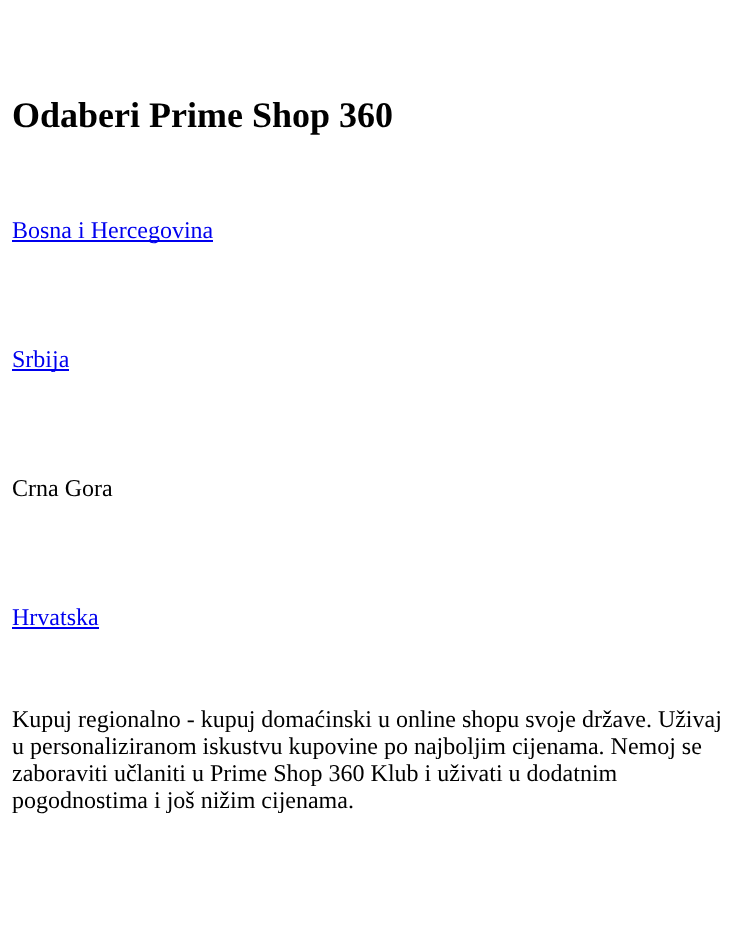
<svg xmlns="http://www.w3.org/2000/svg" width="735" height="949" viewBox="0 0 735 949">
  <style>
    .t1 { font: bold 36px Liberation Serif; fill: #000; }
    .t2 { font: 24px Liberation Serif; fill: #00e; }
    .t3 { font: 24px Liberation Serif; fill: #000; }
  </style>
  <rect width="100%" height="100%" fill="#fff"/>
  <text x="12" y="127" class="t1">Odaberi Prime Shop 360</text>
  <rect x="12" y="240" width="201" height="2" fill="#00e"/>
  <text x="12" y="238" class="t2">Bosna i Hercegovina</text>
  <rect x="12" y="369" width="57" height="2" fill="#00e"/>
  <text x="12" y="367" class="t2">Srbija</text>
  <text x="12" y="496" class="t3">Crna Gora</text>
  <text x="12" y="625" class="t2">Hrvatska</text>
  <rect x="12" y="627" width="87" height="2" fill="#00e"/>
  <text x="12" y="727" class="t3">Kupuj regionalno - kupuj domaćinski u online shopu svoje države. Uživaj</text>
  <text x="12" y="754" class="t3">u personaliziranom iskustvu kupovine po najboljim cijenama. Nemoj se</text>
  <text x="12" y="781" class="t3">zaboraviti učlaniti u Prime Shop 360 Klub i uživati u dodatnim</text>
  <text x="12" y="808" class="t3">pogodnostima i još nižim cijenama.</text>
</svg>
